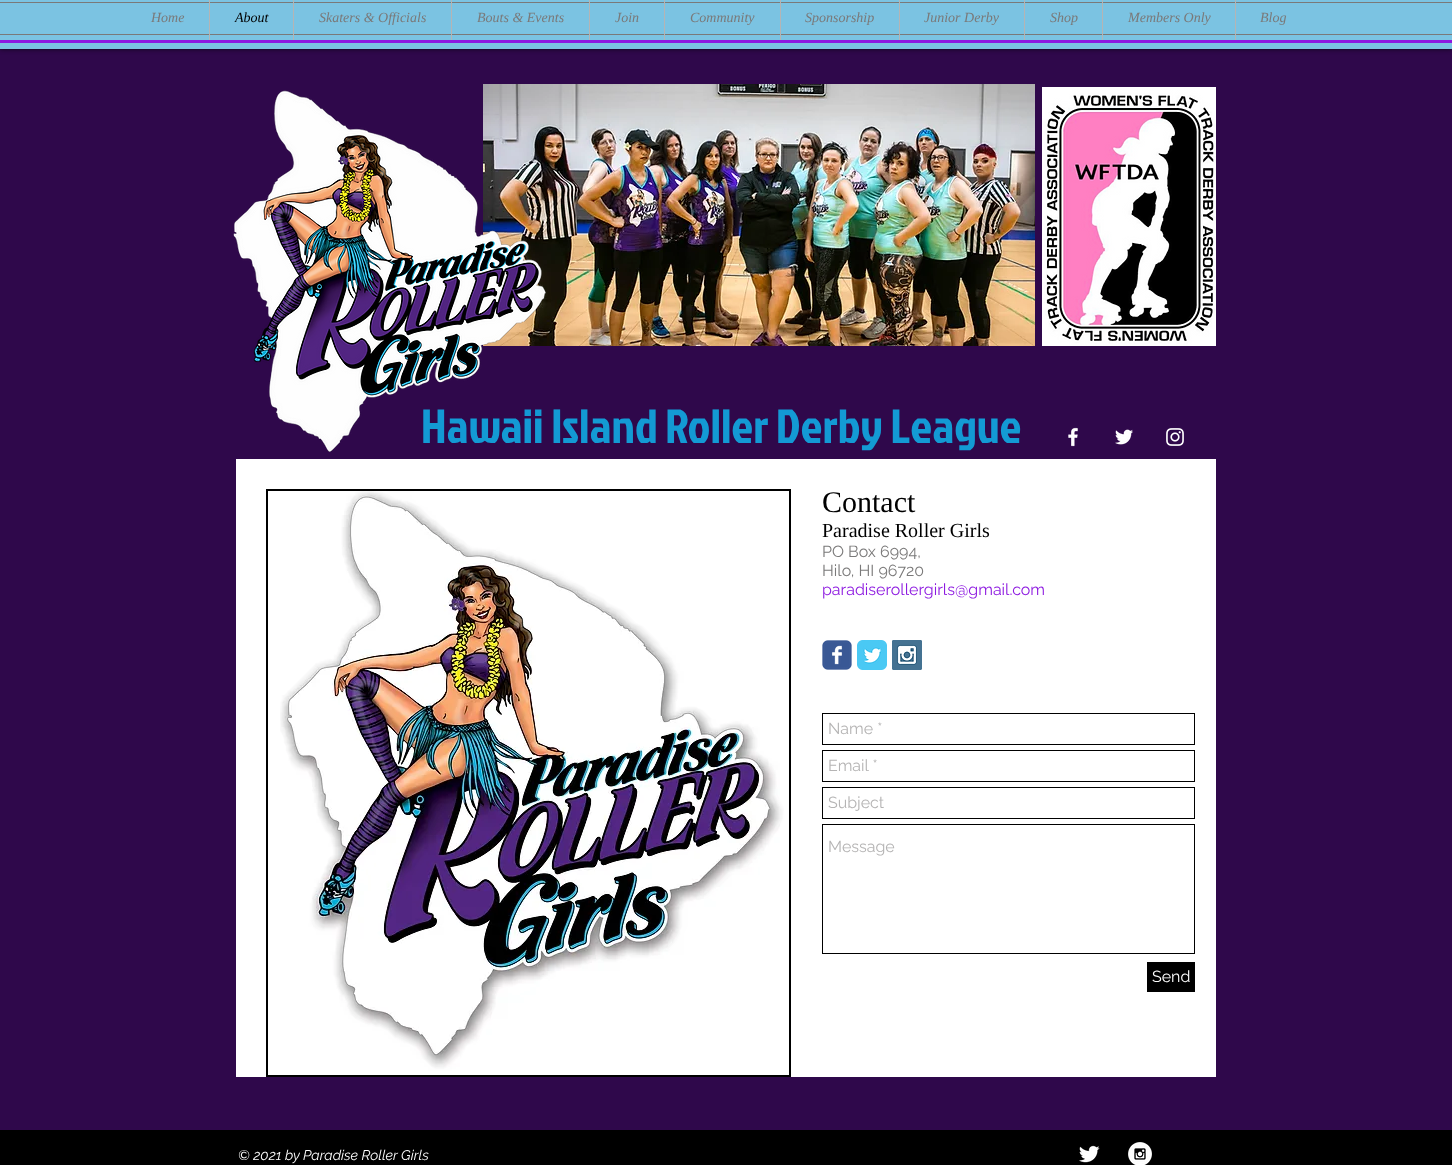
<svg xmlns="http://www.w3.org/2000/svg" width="1452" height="1165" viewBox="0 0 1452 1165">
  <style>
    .t1 { font: italic 14px Liberation Serif; fill: #7a7979; }
    .t2 { font: italic 14px Liberation Serif; fill: #000; }
    .t3 { font: 48px Jockey One; fill: #139ad4; }
    .t4 { font: 30px Liberation Serif; fill: #000; }
    .t5 { font: 20px Liberation Serif; fill: #000; }
    .t6 { font: 16px Raleway; fill: #7a7979; }
    .t7 { font: 16px Raleway; fill: #8d19e0; }
    .t8 { font: 16px Raleway; fill: #b5b4b4; }
    .t9 { font: 16px Raleway; fill: #fff; }
    .t10 { font: italic 14px Raleway; fill: #fff; }
  </style>
  <rect width="100%" height="100%" fill="#2f084b"/>
  <rect x="0" y="-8" width="1452" height="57" fill="#000000b3" filter="blur(2.5px)"/>
  <rect x="0" y="0" width="1452" height="49" fill="#7bc3e2"/>
  <text x="151" y="22" class="t1">Home</text>
  <rect x="0" y="2" width="1452" height="1" fill="#7a7979"/>
  <rect x="0" y="34" width="1452" height="1" fill="#7a7979"/>
  <rect x="209" y="0" width="1" height="40" fill="#b5b4b4"/>
  <text x="235" y="22" class="t2">About</text>
  <rect x="293" y="0" width="1" height="40" fill="#b5b4b4"/>
  <text x="319" y="22" class="t1">Skaters &amp; Officials</text>
  <rect x="451" y="0" width="1" height="40" fill="#b5b4b4"/>
  <text x="477" y="22" class="t1">Bouts &amp; Events</text>
  <rect x="589" y="0" width="1" height="40" fill="#b5b4b4"/>
  <text x="615" y="22" class="t1">Join</text>
  <rect x="664" y="0" width="1" height="40" fill="#b5b4b4"/>
  <text x="690" y="22" class="t1">Community</text>
  <rect x="780" y="0" width="1" height="40" fill="#b5b4b4"/>
  <text x="805" y="22" class="t1">Sponsorship</text>
  <rect x="899" y="0" width="1" height="40" fill="#b5b4b4"/>
  <text x="924" y="22" class="t1">Junior Derby</text>
  <rect x="1024" y="0" width="1" height="40" fill="#b5b4b4"/>
  <text x="1050" y="22" class="t1">Shop</text>
  <rect x="1102" y="0" width="1" height="40" fill="#b5b4b4"/>
  <text x="1128" y="22" class="t1">Members Only</text>
  <rect x="1235" y="0" width="1" height="40" fill="#b5b4b4"/>
  <text x="1260" y="22" class="t1">Blog</text>
  <rect x="0" y="40" width="1452" height="3" fill="#8d19e0"/>
  <image x="483" y="84" width="552" height="262" href="images/2.png"/>
  <image x="233" y="90" width="313" height="362" href="images/1.png"/>
  <image x="1042" y="87" width="174" height="259" href="images/3.png"/>
  <text x="421" y="443" class="t3">Hawaii Island Roller Derby League</text>
  <image x="1068" y="427" width="10" height="20" href="images/4.png"/>
  <image x="1115" y="429" width="18" height="16" href="images/5.png"/>
  <image x="1166" y="428" width="18" height="18" href="images/6.png"/>
  <rect x="236" y="459" width="980" height="618" fill="#fff"/>
  <rect x="266" y="489" width="525" height="588" fill="#000"/>
  <image x="268" y="491" width="521" height="584" href="images/7.png"/>
  <text x="822" y="512" class="t4">Contact</text>
  <text x="822" y="537" class="t5">Paradise Roller Girls</text>
  <text x="822" y="557" class="t6">PO Box 6994,</text>
  <text x="822" y="576" class="t6">Hilo, HI 96720</text>
  <text x="822" y="595" class="t7">paradiserollergirls@gmail.com</text>
  <image x="822" y="640" width="30" height="30" href="images/8.png"/>
  <image x="857" y="640" width="30" height="30" href="images/9.png"/>
  <image x="892" y="640" width="30" height="30" href="images/10.png"/>
  <rect x="822.5" y="713.5" width="372" height="31" fill="none" stroke="#000"/>
  <text x="828" y="734" class="t8">Name *</text>
  <rect x="822.5" y="750.5" width="372" height="31" fill="none" stroke="#000"/>
  <text x="828" y="771" class="t8">Email *</text>
  <rect x="822.5" y="787.5" width="372" height="31" fill="none" stroke="#000"/>
  <text x="828" y="808" class="t8">Subject</text>
  <rect x="822.5" y="824.5" width="372" height="129" fill="none" stroke="#000"/>
  <text x="828" y="852" class="t8">Message</text>
  <rect x="1147" y="962" width="48" height="30" fill="#000"/>
  <text x="1152" y="982" class="t9">Send</text>
  <rect x="0" y="1130" width="1452" height="35" fill="#000"/>
  <text x="238" y="1160" class="t10">© 2021 by Paradise Roller Girls</text>
  <image x="1079" y="1145" width="21" height="18" href="images/11.png"/>
  <image x="1128" y="1142" width="24" height="23" href="images/12.png"/>
</svg>
